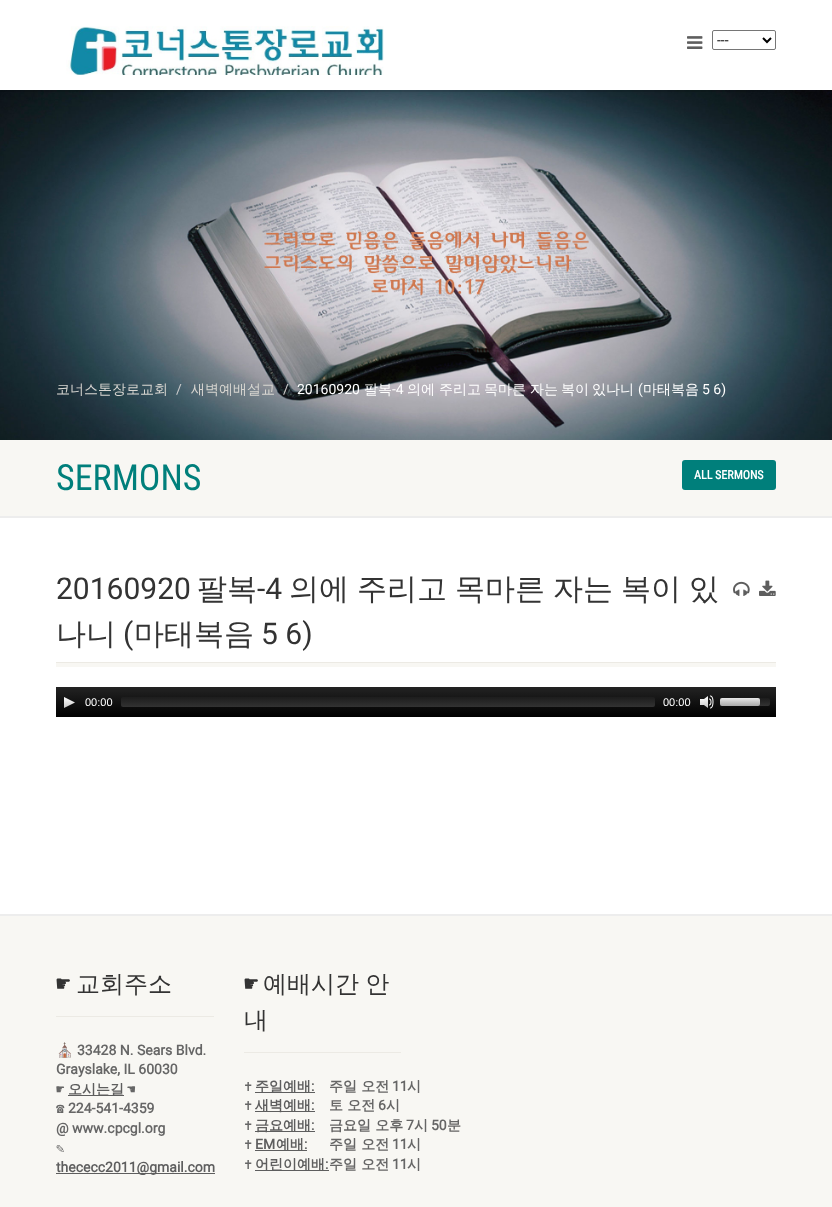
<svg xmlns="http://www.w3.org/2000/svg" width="832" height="1207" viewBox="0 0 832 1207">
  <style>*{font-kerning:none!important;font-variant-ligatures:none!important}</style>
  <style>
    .t1 { font: 14px Roboto; fill: #000; }
    .t2 { font: 500 14px WenQuanYi Zen Hei; fill: #d8d6d1; }
    .t3 { font: 14px Roboto; fill: #ccc; }
    .t4 { font: 14px Roboto; fill: #fff; }
    .t5 { font: 500 14px WenQuanYi Zen Hei; fill: #fff; }
    .t6 { font: 36px Roboto Condensed; fill: #007f7b; }
    .t7 { font: bold 12px Roboto Condensed; fill: #fff; }
    .t8 { font: 30px Roboto; fill: #333; }
    .t9 { font: 500 30px WenQuanYi Zen Hei; fill: #333; }
    .t10 { font: 11px Liberation Sans; fill: #fff; }
    .t11 { font: 24px DejaVu Sans Mono; fill: #333; }
    .t12 { font: 500 24px WenQuanYi Zen Hei; fill: #333; }
    .t13 { font: bold 14px Noto Color Emoji; fill: #666; }
    .t14 { font: bold 14px Roboto; fill: #666; }
    .t15 { font: bold 14px DejaVu Sans Mono; fill: #666; }
    .t16 { font: bold 14px WenQuanYi Zen Hei; fill: #5e5e5e; }
    .t17 { font: bold 14px Roboto; fill: #5e5e5e; }
    .t18 { font: bold 14px WenQuanYi Zen Hei; fill: #666; }
  </style>
  <defs>
    <linearGradient id="g1" gradientUnits="userSpaceOnUse" x1="416" y1="687" x2="416" y2="717"><stop offset="0" stop-color="#232323"/><stop offset="1" stop-color="#000"/></linearGradient>
    <linearGradient id="g2" gradientUnits="userSpaceOnUse" x1="388" y1="697" x2="388" y2="707"><stop offset="0" stop-color="#1e1e1e" stop-opacity="0.8"/><stop offset="1" stop-color="#3c3c3c" stop-opacity="0.8"/></linearGradient>
    <linearGradient id="g3" gradientUnits="userSpaceOnUse" x1="745" y1="698" x2="745" y2="706"><stop offset="0" stop-color="#1e1e1e" stop-opacity="0.8"/><stop offset="1" stop-color="#3c3c3c" stop-opacity="0.8"/></linearGradient>
    <linearGradient id="g4" gradientUnits="userSpaceOnUse" x1="740" y1="698" x2="740" y2="706"><stop offset="0" stop-color="#fff" stop-opacity="0.9"/><stop offset="1" stop-color="#c8c8c8" stop-opacity="0.8"/></linearGradient>
  </defs>
  <rect width="100%" height="100%" fill="#fff"/>
  <image x="0" y="90" width="832" height="350" href="images/3.png"/>
  <rect x="0" y="90" width="768" height="2" fill="#0000001a"/>
  <image x="66" y="26" width="318" height="49" href="images/1.png"/>
  <image x="687" y="36" width="16" height="13" href="images/2.png"/>
  <rect x="712.5" y="30.5" width="63" height="19" rx="1.5" fill="none" stroke="#767676"/>
  <path d="M763 38L767 42L771 38" fill="none" stroke="#000" stroke-width="2"/>
  <text x="717" y="45" class="t1">---</text>
  <text x="56" y="394" class="t2">코너스톤장로교회</text>
  <text x="176" y="394" class="t3">/</text>
  <text x="191" y="394" class="t2">새벽예배설교</text>
  <text x="283" y="394" class="t3">/</text>
  <text x="297" y="394" class="t4">20160920</text>
  <text x="364" y="394" class="t5">팔복</text>
  <text x="392" y="394" class="t4">-4</text>
  <text x="407" y="394" class="t5">의에</text>
  <text x="439" y="394" class="t5">주리고</text>
  <text x="484" y="394" class="t5">목마른</text>
  <text x="530" y="394" class="t5">자는</text>
  <text x="561" y="394" class="t5">복이</text>
  <text x="592" y="394" class="t5">있나니</text>
  <text x="638" y="394" class="t4">(</text>
  <text x="643" y="394" class="t5">마태복음</text>
  <text x="702" y="394" class="t4">5 6)</text>
  <rect x="0" y="516" width="832" height="2" fill="#ededed"/>
  <rect x="0" y="440" width="832" height="76" fill="#f8f7f3"/>
  <text x="56" y="490" class="t6">SERMONS</text>
  <rect x="682" y="460" width="94" height="30" rx="3" fill="#007f7b"/>
  <text x="694" y="479" class="t7">ALL SERMONS</text>
  <rect x="56" y="662" width="720" height="1" fill="#eceae4"/>
  <text x="56" y="599" class="t8">20160920</text>
  <text x="197" y="599" class="t9">팔복</text>
  <text x="257" y="599" class="t8">-4</text>
  <text x="289" y="599" word-spacing="-1" class="t9">의에 주리고 목마른 자는 복이 있</text>
  <text x="56" y="644" class="t9">나니</text>
  <text x="123" y="644" class="t8">(</text>
  <text x="134" y="644" class="t9">마태복음</text>
  <text x="261" y="644" class="t8">5 6)</text>
  <image x="733" y="581" width="17" height="15" href="images/4.png"/>
  <image x="759" y="580" width="17" height="16" href="images/5.png"/>
  <rect x="56" y="663" width="720" height="4" fill="#f8f7f3"/>
  <rect x="56" y="687" width="720" height="30" fill="url(#g1)"/>
  <image x="64" y="697" width="11" height="11" href="images/6.png"/>
  <text x="85" y="706" class="t10">00:00</text>
  <rect x="121" y="697" width="534" height="10" rx="2" fill="url(#g2)"/>
  <text x="663" y="706" class="t10">00:00</text>
  <image x="700" y="695" width="14" height="14" href="images/7.png"/>
  <rect x="720" y="698" width="50" height="8" rx="2" fill="url(#g3)"/>
  <rect x="720" y="698" width="40" height="8" rx="2" fill="url(#g4)"/>
  <rect x="0" y="914" width="832" height="2" fill="#ededed"/>
  <rect x="0" y="916" width="832" height="291" fill="#f8f7f3"/>
  <text x="56" y="992" class="t11">☛</text>
  <text x="76" y="992" class="t12">교회주소</text>
  <rect x="56" y="1016" width="158" height="1" fill="#eceae4"/>
  <text x="56" y="1055" class="t13">⛪</text>
  <text x="77" y="1055" class="t14">33428 N. Sears Blvd.</text>
  <text x="56" y="1074" class="t14">Grayslake, IL 60030</text>
  <text x="56" y="1094" class="t15">☛</text>
  <rect x="68" y="1095" width="56" height="1" fill="#5e5e5e"/>
  <text x="68" y="1094" class="t16">오시는길</text>
  <text x="127" y="1094" class="t15">☚</text>
  <text x="56" y="1113" class="t15">☎</text>
  <text x="68" y="1113" class="t14">224-541-4359</text>
  <text x="56" y="1133" class="t14">@ www.cpcgl.org</text>
  <text x="56" y="1153" class="t15">✎</text>
  <rect x="56" y="1173" width="159" height="1" fill="#5e5e5e"/>
  <text x="56" y="1172" class="t17">thececc2011@gmail.com</text>
  <text x="244" y="992" class="t11">☛</text>
  <text x="263" y="992" word-spacing="-1" class="t12">예배시간 안</text>
  <text x="244" y="1028" class="t12">내</text>
  <rect x="244" y="1052" width="157" height="1" fill="#eceae4"/>
  <text x="244" y="1091" class="t15">✝</text>
  <rect x="255" y="1092" width="60" height="1" fill="#5e5e5e"/>
  <text x="255" y="1091" class="t16">주일예배</text>
  <text x="311" y="1091" class="t17">:</text>
  <text x="329" y="1091" class="t18">주일 오전</text>
  <text x="392" y="1091" class="t14">11</text>
  <text x="407" y="1091" class="t18">시</text>
  <text x="244" y="1110" class="t15">✝</text>
  <rect x="255" y="1111" width="60" height="1" fill="#5e5e5e"/>
  <text x="255" y="1110" class="t16">새벽예배</text>
  <text x="311" y="1110" class="t17">:</text>
  <text x="329" y="1110" class="t18">토 오전</text>
  <text x="378" y="1110" class="t14">6</text>
  <text x="386" y="1110" class="t18">시</text>
  <text x="244" y="1130" class="t15">✝</text>
  <rect x="255" y="1131" width="60" height="1" fill="#5e5e5e"/>
  <text x="255" y="1130" class="t16">금요예배</text>
  <text x="311" y="1130" class="t17">:</text>
  <text x="329" y="1130" class="t18">금요일 오후</text>
  <text x="406" y="1130" class="t14">7</text>
  <text x="414" y="1130" class="t18">시</text>
  <text x="431" y="1130" class="t14">50</text>
  <text x="447" y="1130" class="t18">분</text>
  <text x="244" y="1149" class="t15">✝</text>
  <text x="255" y="1149" class="t17">EM</text>
  <rect x="255" y="1150" width="52" height="1" fill="#5e5e5e"/>
  <text x="276" y="1149" class="t16">예배</text>
  <text x="304" y="1149" class="t17">:</text>
  <text x="329" y="1149" class="t18">주일 오전</text>
  <text x="392" y="1149" class="t14">11</text>
  <text x="407" y="1149" class="t18">시</text>
  <text x="244" y="1169" class="t15">✝</text>
  <rect x="255" y="1170" width="74" height="1" fill="#5e5e5e"/>
  <text x="255" y="1169" class="t16">어린이예배</text>
  <text x="325" y="1169" class="t17">:</text>
  <text x="329" y="1169" class="t18">주일 오전</text>
  <text x="392" y="1169" class="t14">11</text>
  <text x="407" y="1169" class="t18">시</text>
</svg>
